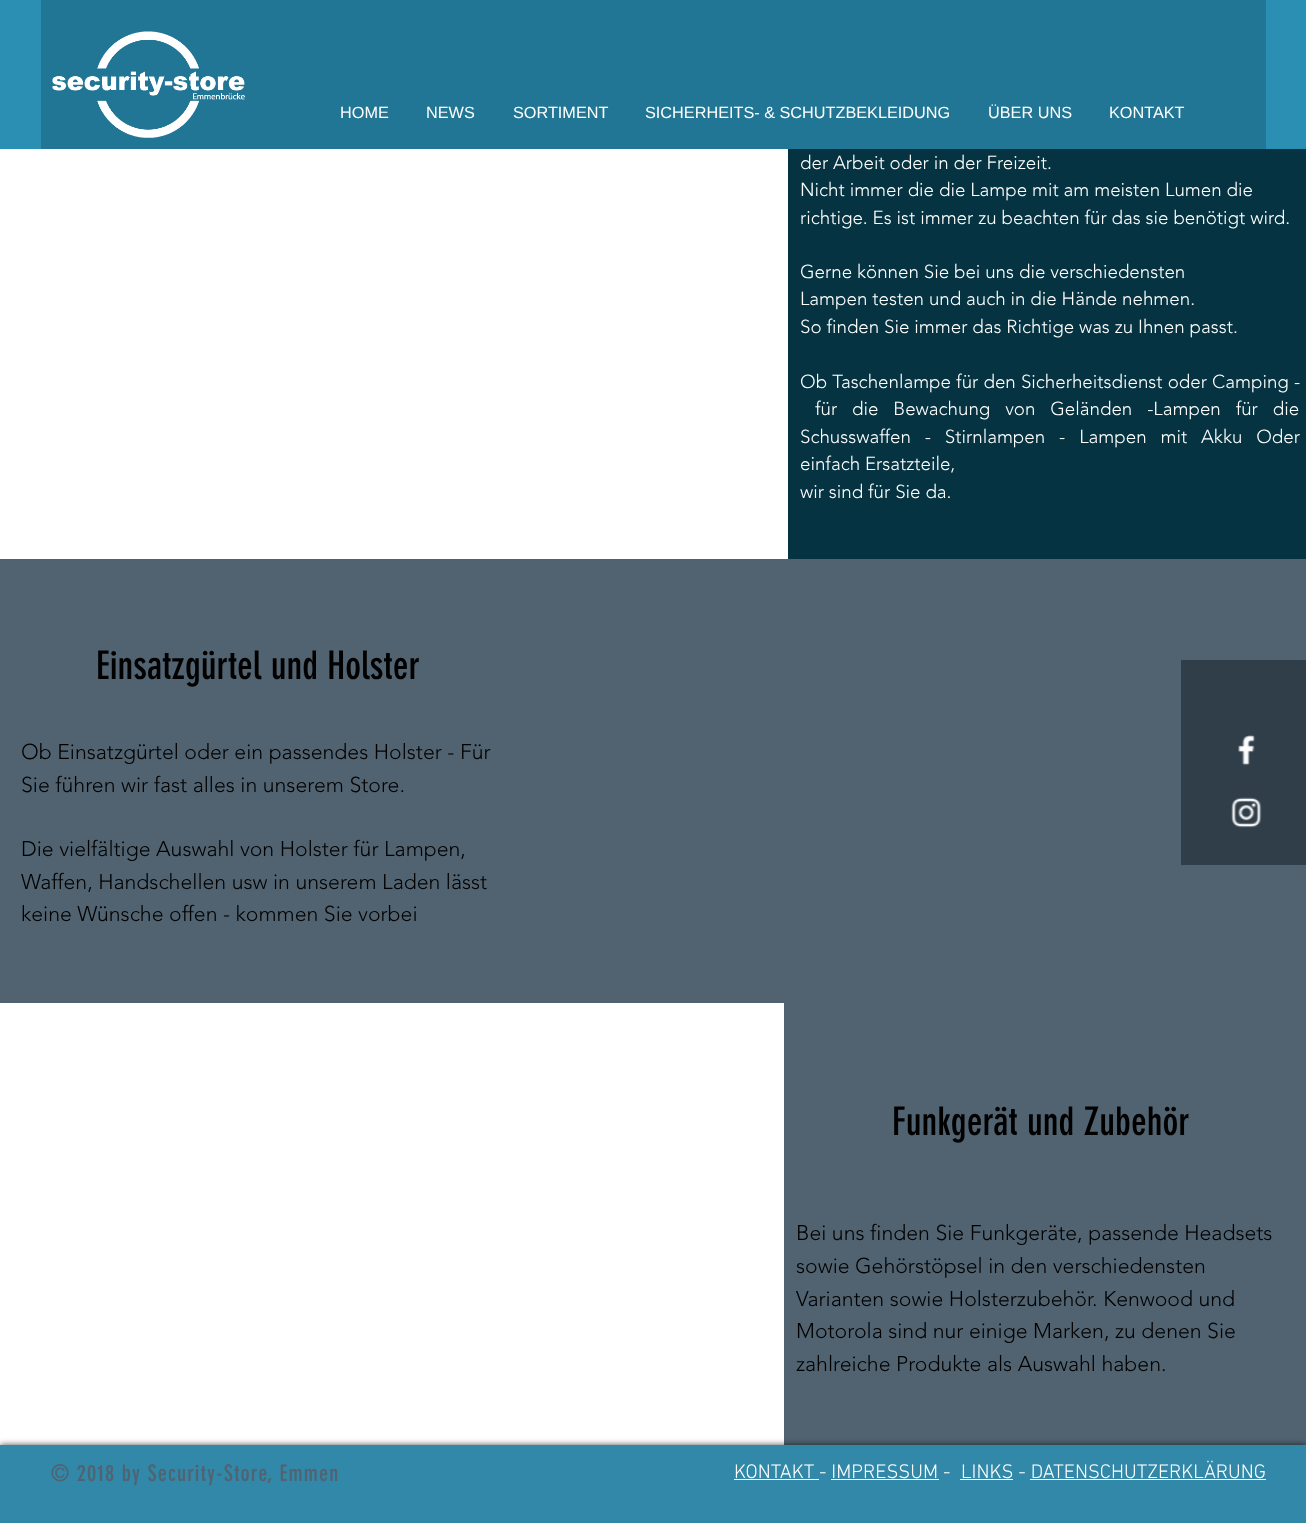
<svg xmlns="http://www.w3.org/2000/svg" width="1306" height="1523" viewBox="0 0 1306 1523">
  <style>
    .t1 { font: 16.25px Liberation Sans; fill: #fffffe; }
    .t2 { font: 300 18.75px 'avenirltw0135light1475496'; fill: #fffffe; }
    .t3 { font: 38.75px 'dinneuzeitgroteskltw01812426'; fill: #000; }
    .t4 { font: 300 21.25px 'avenirltw0135light1475496'; fill: #000; }
    .t5 { font: 22.5px 'dinneuzeitgroteskltw01812426'; letter-spacing: 1.1px; fill: #516371; }
    .t6 { font: 300 20px 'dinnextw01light'; fill: #fffffe; }
  </style>
  <rect width="100%" height="100%" fill="#fff"/>
  <rect x="0" y="0" width="1306" height="149" fill="#2b8fb3"/>
  <rect x="41" y="0" width="1225" height="149" fill="#217695"/>
  <image x="52" y="31" width="193" height="107" href="images/1.png"/>
  <text x="340" y="118" class="t1">HOME</text>
  <text x="426" y="118" class="t1">NEWS</text>
  <text x="513" y="118" class="t1">SORTIMENT</text>
  <text x="645" y="118" class="t1">SICHERHEITS- &amp; SCHUTZBEKLEIDUNG</text>
  <text x="988" y="118" class="t1">ÜBER UNS</text>
  <text x="1109" y="118" class="t1">KONTAKT</text>
  <rect x="788" y="149" width="518" height="410" fill="#053342"/>
  <text x="800" y="169" class="t2">der Arbeit oder in der Freizeit.</text>
  <text x="800" y="196" class="t2">Nicht immer die die Lampe mit am meisten Lumen die</text>
  <text x="800" y="224" class="t2">richtige. Es ist immer zu beachten für das sie benötigt wird.</text>
  <text x="800" y="278" class="t2">Gerne können Sie bei uns die verschiedensten</text>
  <text x="800" y="305" class="t2">Lampen testen und auch in die Hände nehmen.</text>
  <text x="800" y="333" class="t2">So finden Sie immer das Richtige was zu Ihnen passt.</text>
  <text x="800" y="388" word-spacing="0.25" class="t2">Ob Taschenlampe für den Sicherheitsdienst oder Camping -</text>
  <text x="815" y="415" word-spacing="10" class="t2">für die Bewachung von Geländen -Lampen für die</text>
  <text x="800" y="443" word-spacing="9" class="t2">Schusswaffen - Stirnlampen - Lampen mit Akku Oder</text>
  <text x="800" y="470" class="t2">einfach Ersatzteile,</text>
  <text x="800" y="498" class="t2">wir sind für Sie da.</text>
  <rect x="0" y="559" width="1306" height="444" fill="#516371"/>
  <text x="96" y="679" class="t3">Einsatzgürtel und Holster</text>
  <text x="21" y="759" class="t4">Ob Einsatzgürtel oder ein passendes Holster - Für</text>
  <text x="21" y="792" class="t4">Sie führen wir fast alles in unserem Store.</text>
  <text x="21" y="856" class="t4">Die vielfältige Auswahl von Holster für Lampen,</text>
  <text x="21" y="889" class="t4">Waffen, Handschellen usw in unserem Laden lässt</text>
  <text x="21" y="921" class="t4">keine Wünsche offen - kommen Sie vorbei</text>
  <rect x="784" y="1003" width="522" height="442" fill="#516371"/>
  <text x="892" y="1135" class="t3">Funkgerät und Zubehör</text>
  <text x="796" y="1240" class="t4">Bei uns finden Sie Funkgeräte, passende Headsets</text>
  <text x="796" y="1273" class="t4">sowie Gehörstöpsel in den verschiedensten</text>
  <text x="796" y="1306" class="t4">Varianten sowie Holsterzubehör. Kenwood und</text>
  <text x="796" y="1338" class="t4">Motorola sind nur einige Marken, zu denen Sie</text>
  <text x="796" y="1371" class="t4">zahlreiche Produkte als Auswahl haben.</text>
  <rect x="1181" y="660" width="125" height="205" fill="#303e49"/>
  <image x="1238" y="735" width="17" height="31" href="images/2.png"/>
  <image x="1231" y="797" width="31" height="31" href="images/3.png"/>
  <rect x="0" y="1445" width="1306" height="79" fill="#000000b3" filter="blur(3px)"/>
  <rect x="0" y="1445" width="1306" height="78" fill="#3188a9"/>
  <text x="51" y="1481" class="t5">© 2018 by Security-Store, Emmen</text>
  <text x="734" y="1478" class="t6">KONTAKT - IMPRESSUM -</text>
  <rect x="734" y="1479" width="85" height="1" fill="#fffffe"/>
  <rect x="831" y="1479" width="108" height="1" fill="#fffffe"/>
  <text x="961" y="1478" class="t6">LINKS - DATENSCHUTZERKLÄRUNG</text>
  <rect x="960" y="1479" width="53" height="1" fill="#fffffe"/>
  <rect x="1030" y="1479" width="236" height="1" fill="#fffffe"/>
</svg>
